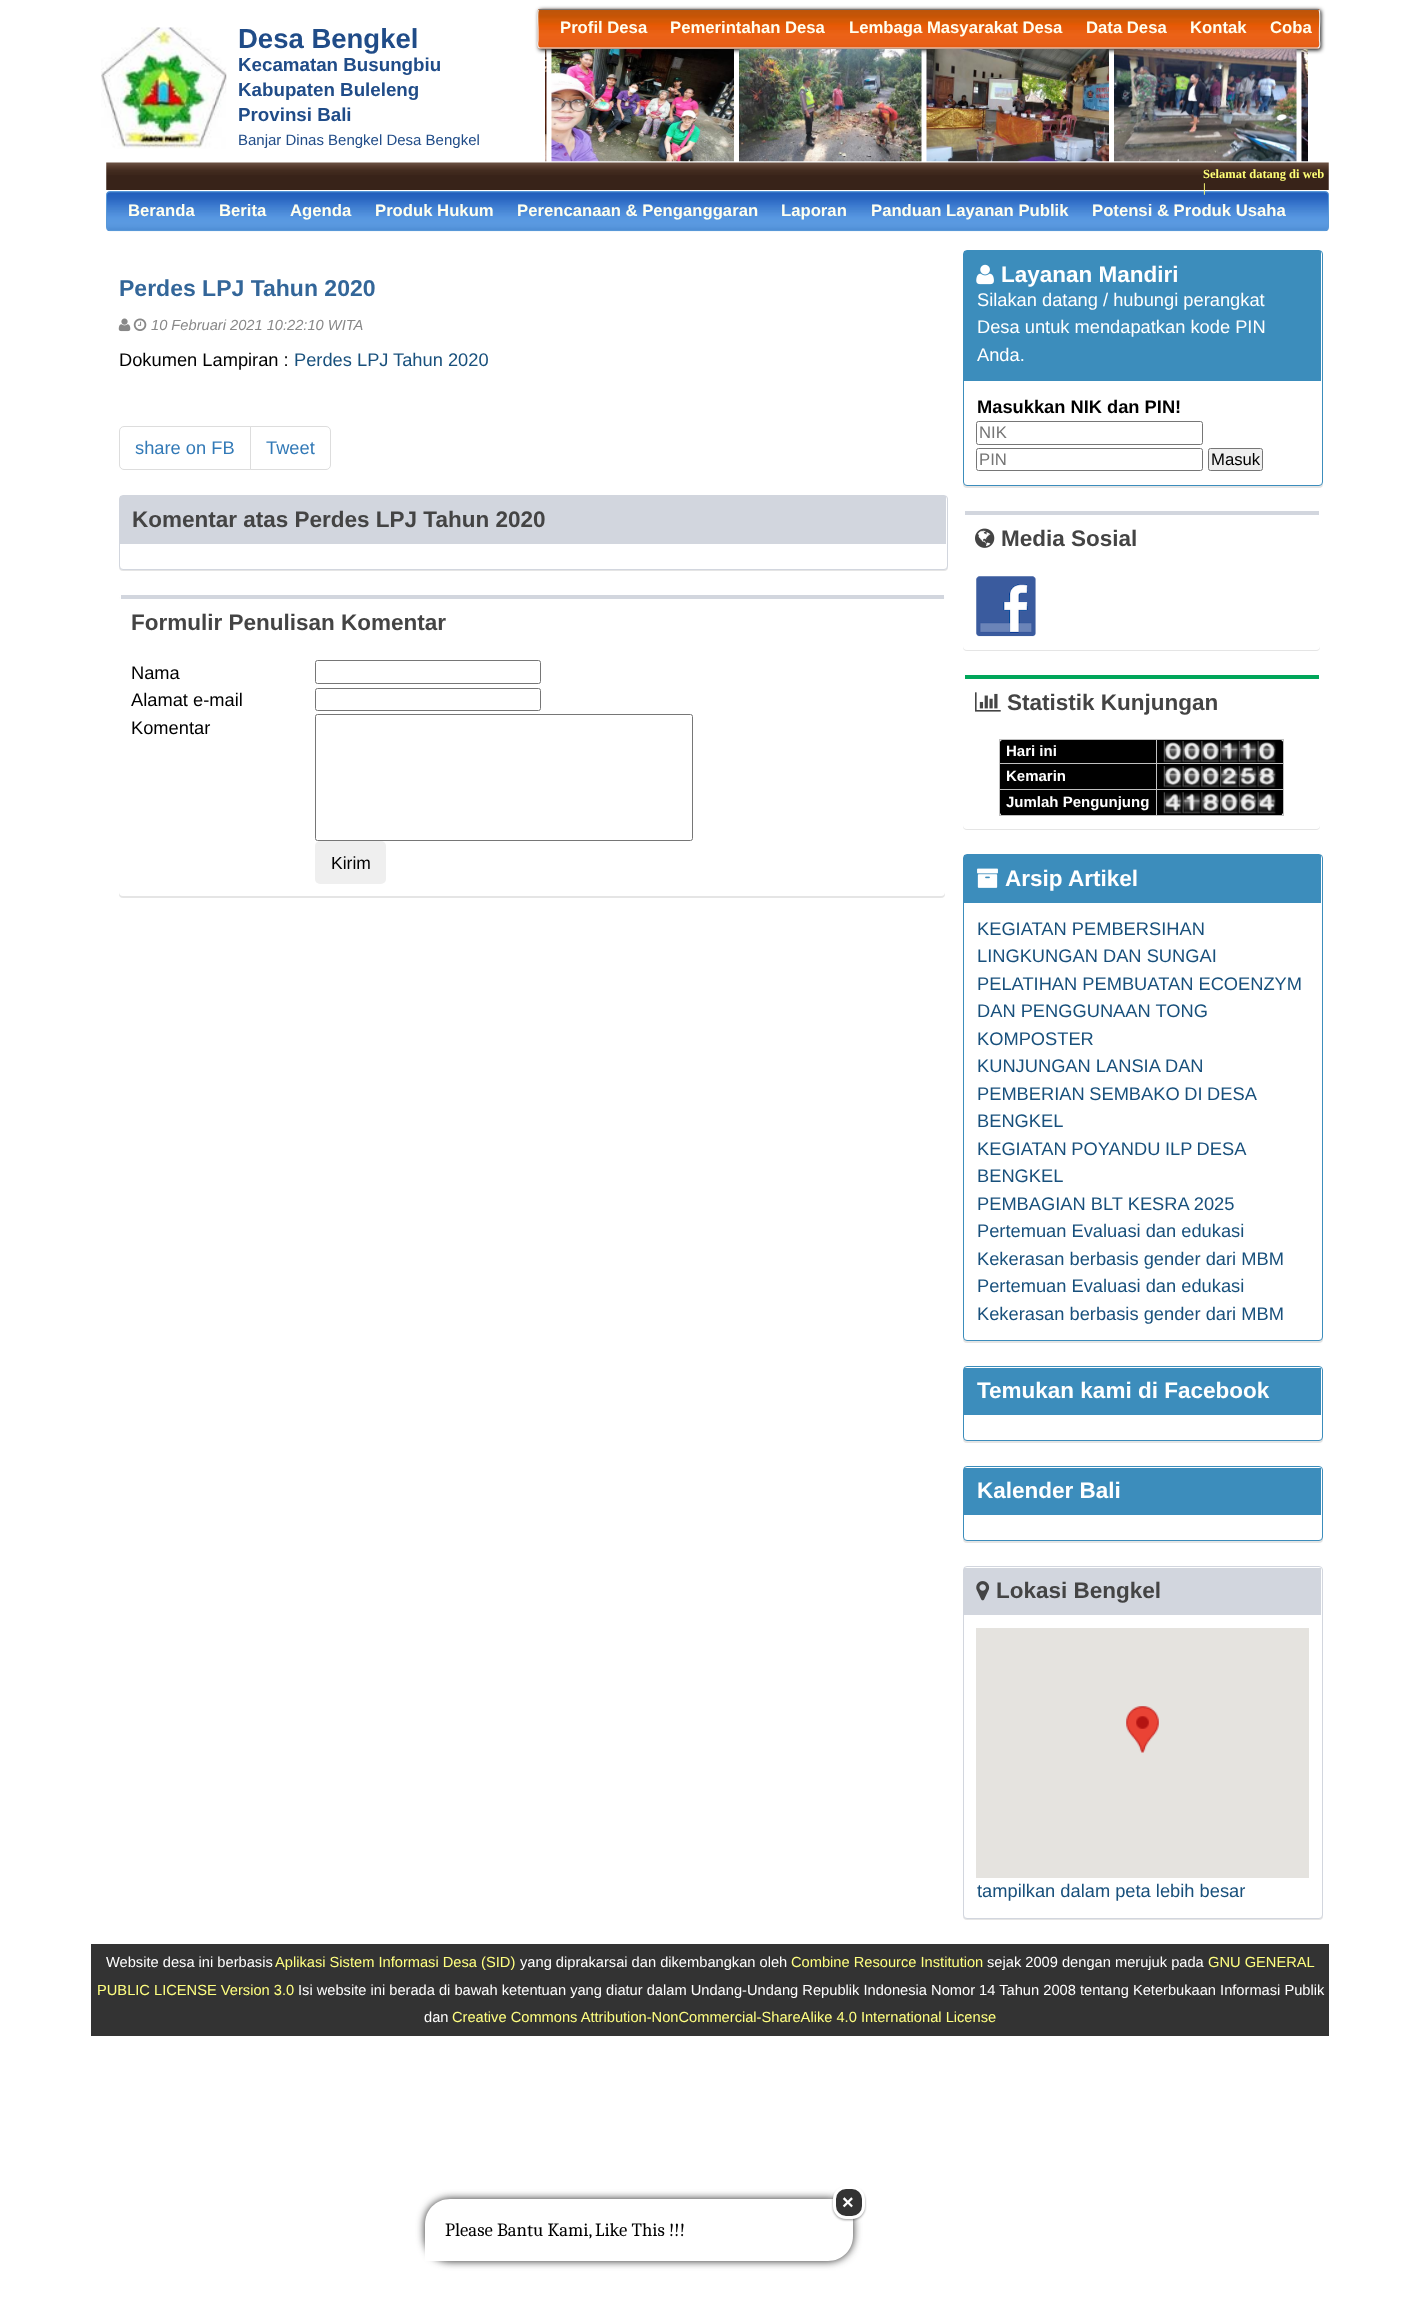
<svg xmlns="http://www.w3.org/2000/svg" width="1419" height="2323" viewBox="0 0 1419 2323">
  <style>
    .t1 { font: bold 27.5px Liberation Sans; fill: #204c88; }
    .t2 { font: bold 18.75px Liberation Sans; fill: #204c88; }
    .t3 { font: 15px Liberation Sans; fill: #204c88; }
    .t4 { font: bold 16.7px Liberation Sans; fill: #ffffef; }
    .t5 { font: bold 12.5px Liberation Serif; fill: #fefe77; }
    .t6 { font: bold 23px Liberation Sans; fill: #369; }
    .t7 { font: italic 14.67px Liberation Sans; fill: #888; }
    .t8 { font: 18.3px Liberation Sans; fill: #000; }
    .t9 { font: 18.3px Liberation Sans; fill: #18507c; }
    .t10 { font: 18.3px Liberation Sans; fill: #337ab7; }
    .t11 { font: bold 22.5px Liberation Sans; fill: #444; }
    .t12 { font: 17.5px Liberation Sans; fill: #000; }
    .t13 { font: bold 22.5px Liberation Sans; fill: #fff; }
    .t14 { font: 18.3px Liberation Sans; fill: #fff; }
    .t15 { font: bold 18.3px Liberation Sans; fill: #000; }
    .t16 { font: 16.7px Liberation Sans; fill: #757575; }
    .t17 { font: 16.7px Liberation Sans; fill: #000; }
    .t18 { font: bold 15px Liberation Sans; fill: #fff; }
    .t19 { font: bold 20px Liberation Sans; fill: #fff; }
    .t20 { font: 18.75px Caladea; fill: #000; }
    .t21 { font: 14.67px Liberation Sans; fill: #fff; }
    .t22 { font: 14.67px Liberation Sans; fill: #ffff80; }
  </style>
  <rect width="100%" height="100%" fill="#fff"/>
  <image x="101" y="27" width="126" height="122" href="images/1.png"/>
  <text x="238" y="48" class="t1">Desa Bengkel</text>
  <text x="238" y="71" class="t2">Kecamatan Busungbiu</text>
  <text x="238" y="96" class="t2">Kabupaten Buleleng</text>
  <text x="238" y="121" class="t2">Provinsi Bali</text>
  <text x="238" y="145" class="t3">Banjar Dinas Bengkel Desa Bengkel</text>
  <rect x="539" y="10" width="782" height="40" rx="2.5" fill="#000" filter="blur(2px)"/>
  <image x="537" y="8" width="783" height="41" href="images/2.png"/>
  <path d="M538.5 10L540 9.5H1317.5L1319 10" fill="none" stroke="#777" stroke-width="1.2"/>
  <path d="M1319 10C1320.5 11.5 1319.5 26 1319.5 29V40.5C1319.5 41 1321 48 1317.5 48H540C536.5 48 538 41 538 40.5V29C538 26 537 11.5 538.5 10" fill="none" stroke="#eee" stroke-width="1.2"/>
  <text x="560" y="33" class="t4">Profil Desa</text>
  <text x="670" y="33" class="t4">Pemerintahan Desa</text>
  <text x="849" y="33" class="t4">Lembaga Masyarakat Desa</text>
  <text x="1086" y="33" class="t4">Data Desa</text>
  <text x="1190" y="33" class="t4">Kontak</text>
  <text x="1270" y="33" class="t4">Coba</text>
  <image x="545" y="49" width="2" height="113" href="images/3.png"/>
  <image x="551" y="49" width="183" height="113" href="images/4.png"/>
  <image x="739" y="49" width="183" height="113" href="images/5.png"/>
  <image x="926" y="49" width="183" height="113" href="images/6.png"/>
  <image x="1114" y="49" width="183" height="113" href="images/7.png"/>
  <image x="1301" y="49" width="7" height="113" href="images/8.png"/>
  <image x="106" y="162" width="1223" height="28" href="images/9.png"/>
  <text x="1203" y="178" class="t5">Selamat datang di web</text>
  <image x="106" y="191" width="1223" height="41" href="images/10.png"/>
  <rect x="106.5" y="191.5" width="1222" height="39" rx="3.5" fill="none" stroke="#5898d8"/>
  <text x="1203" y="192" class="t5">|</text>
  <text x="128" y="216" class="t4">Beranda</text>
  <text x="219" y="216" class="t4">Berita</text>
  <text x="290" y="216" class="t4">Agenda</text>
  <text x="375" y="216" class="t4">Produk Hukum</text>
  <text x="517" y="216" class="t4">Perencanaan &amp; Penganggaran</text>
  <text x="781" y="216" class="t4">Laporan</text>
  <text x="871" y="216" class="t4">Panduan Layanan Publik</text>
  <text x="1092" y="216" class="t4">Potensi &amp; Produk Usaha</text>
  <text x="119" y="296" class="t6">Perdes LPJ Tahun 2020</text>
  <image x="118" y="318" width="13" height="14" href="images/11.png"/>
  <image x="133" y="318" width="14" height="13" href="images/12.png"/>
  <text x="151" y="330" class="t7">10 Februari 2021 10:22:10 WITA</text>
  <text x="119" y="366" class="t8">Dokumen Lampiran :</text>
  <text x="294" y="366" class="t9">Perdes LPJ</text>
  <text x="393" y="366" class="t9">Tahun 2020</text>
  <path d="M124 426.5H250.5V469.5H124C121.5 469.5 119.5 467.5 119.5 465V431C119.5 428.5 121.5 426.5 124 426.5Z" fill="none" stroke="#ddd"/>
  <text x="135" y="454" class="t10">share on FB</text>
  <path d="M250.5 426.5H326C328.5 426.5 330.5 428.5 330.5 431V465C330.5 467.5 328.5 469.5 326 469.5H250.5Z" fill="#fff" stroke="#ddd"/>
  <text x="266" y="454" class="t10">Tweet</text>
  <rect x="119" y="496" width="829" height="75" rx="4" fill="#0000001a" filter="blur(0.5px)"/>
  <rect x="119.5" y="495.5" width="828" height="74" rx="3.5" fill="#fff" stroke="#d2d6de"/>
  <rect x="120" y="496" width="826" height="48" fill="#d2d6de"/>
  <text x="132" y="527" class="t11">Komentar atas Perdes LPJ Tahun 2020</text>
  <rect x="119" y="596" width="826" height="302" rx="4" fill="#0000001a" filter="blur(0.5px)"/>
  <rect x="119" y="595" width="826" height="301" rx="4" fill="#fff"/>
  <rect x="121" y="595" width="823" height="4" fill="#d2d6de"/>
  <text x="131" y="630" class="t11">Formulir Penulisan Komentar</text>
  <text x="131" y="679" class="t8">Nama</text>
  <rect x="315.5" y="660.5" width="225" height="23" rx="2" fill="none" stroke="#767676"/>
  <text x="131" y="706" class="t8">Alamat e-mail</text>
  <rect x="315.5" y="688.5" width="225" height="22" rx="2" fill="none" stroke="#767676"/>
  <text x="131" y="734" class="t8">Komentar</text>
  <rect x="315.5" y="714.5" width="377" height="126" rx="2" fill="none" stroke="#767676"/>
  <rect x="315" y="841" width="71" height="43" rx="5" fill="#efefef"/>
  <text x="331" y="869" class="t12">Kirim</text>
  <rect x="963" y="251" width="360" height="237" rx="4" fill="#0000001a" filter="blur(0.5px)"/>
  <rect x="963.5" y="250.5" width="359" height="235" rx="3.5" fill="#fff" stroke="#3c8dbc"/>
  <rect x="964" y="251" width="357" height="130" fill="#3c8dbc"/>
  <image x="976" y="264" width="18" height="21" href="images/13.png"/>
  <text x="1001" y="282" class="t13">Layanan Mandiri</text>
  <text x="977" y="306" class="t14">Silakan datang / hubungi perangkat</text>
  <text x="977" y="333" class="t14">Desa untuk mendapatkan kode PIN</text>
  <text x="977" y="361" class="t14">Anda.</text>
  <text x="977" y="413" class="t15">Masukkan NIK dan PIN!</text>
  <rect x="976.5" y="421.5" width="226" height="23" rx="2" fill="none" stroke="#767676"/>
  <text x="979" y="438" class="t16">NIK</text>
  <rect x="976.5" y="448.5" width="226" height="22" rx="2" fill="none" stroke="#767676"/>
  <text x="979" y="465" class="t16">PIN</text>
  <rect x="1208.5" y="448.5" width="54" height="22" rx="2" fill="#efefef" stroke="#767676"/>
  <text x="1211" y="465" class="t17">Masuk</text>
  <rect x="963" y="513" width="357" height="138" rx="4" fill="#0000001a" filter="blur(0.5px)"/>
  <rect x="963" y="511" width="357" height="139" rx="4" fill="#fff"/>
  <rect x="965" y="511" width="354" height="4" fill="#d2d6de"/>
  <image x="975" y="528" width="20" height="20" href="images/14.png"/>
  <text x="1001" y="546" class="t11">Media Sosial</text>
  <image x="976" y="576" width="60" height="61" href="images/15.png"/>
  <rect x="963" y="676" width="357" height="154" rx="4" fill="#0000001a" filter="blur(0.5px)"/>
  <rect x="963" y="675" width="357" height="154" rx="4" fill="#fff"/>
  <rect x="965" y="675" width="354" height="4" fill="#00a65a"/>
  <image x="975" y="692" width="26" height="20" href="images/16.png"/>
  <text x="1007" y="710" class="t11">Statistik Kunjungan</text>
  <rect x="999" y="739" width="285" height="77" rx="6" fill="#000"/>
  <rect x="999" y="739" width="285" height="1" fill="#c0c0c0"/>
  <rect x="1283" y="739" width="1" height="77" fill="#c0c0c0"/>
  <rect x="999" y="815" width="285" height="1" fill="#c0c0c0"/>
  <rect x="999" y="739" width="1" height="77" fill="#c0c0c0"/>
  <rect x="1156" y="789" width="1" height="27" fill="#c0c0c0"/>
  <rect x="1156" y="789" width="128" height="1" fill="#c0c0c0"/>
  <rect x="1156" y="763" width="1" height="27" fill="#c0c0c0"/>
  <rect x="1156" y="763" width="128" height="1" fill="#c0c0c0"/>
  <rect x="1156" y="739" width="1" height="25" fill="#c0c0c0"/>
  <rect x="999" y="763" width="159" height="1" fill="#c0c0c0"/>
  <text x="1006" y="756" class="t18">Hari ini</text>
  <image x="1163" y="741" width="20" height="22" href="images/17.png"/>
  <image x="1182" y="741" width="19" height="22" href="images/18.png"/>
  <image x="1201" y="741" width="19" height="22" href="images/19.png"/>
  <image x="1220" y="741" width="19" height="22" href="images/20.png"/>
  <image x="1238" y="741" width="20" height="22" href="images/21.png"/>
  <image x="1257" y="741" width="19" height="22" href="images/22.png"/>
  <rect x="999" y="789" width="159" height="1" fill="#c0c0c0"/>
  <text x="1006" y="781" class="t18">Kemarin</text>
  <image x="1163" y="766" width="20" height="22" href="images/17.png"/>
  <image x="1182" y="766" width="19" height="22" href="images/18.png"/>
  <image x="1201" y="766" width="19" height="22" href="images/19.png"/>
  <image x="1220" y="766" width="19" height="22" href="images/23.png"/>
  <image x="1238" y="766" width="20" height="22" href="images/24.png"/>
  <image x="1257" y="766" width="19" height="22" href="images/25.png"/>
  <text x="1006" y="807" class="t18">Jumlah Pengunjung</text>
  <image x="1163" y="792" width="20" height="22" href="images/26.png"/>
  <image x="1182" y="792" width="19" height="22" href="images/27.png"/>
  <image x="1201" y="792" width="19" height="22" href="images/28.png"/>
  <image x="1220" y="792" width="19" height="22" href="images/29.png"/>
  <image x="1238" y="792" width="20" height="22" href="images/30.png"/>
  <image x="1257" y="792" width="19" height="22" href="images/31.png"/>
  <rect x="963" y="855" width="360" height="488" rx="4" fill="#0000001a" filter="blur(0.5px)"/>
  <rect x="963.5" y="854.5" width="359" height="486" rx="3.5" fill="#fff" stroke="#3c8dbc"/>
  <rect x="964" y="855" width="357" height="48" fill="#3c8dbc"/>
  <image x="977" y="868" width="21" height="20" href="images/32.png"/>
  <text x="1005" y="886" class="t13">Arsip Artikel</text>
  <text x="977" y="935" class="t9">KEGIATAN PEMBERSIHAN</text>
  <text x="977" y="962" class="t9">LINGKUNGAN DAN SUNGAI</text>
  <text x="977" y="990" class="t9">PELATIHAN PEMBUATAN ECOENZYM</text>
  <text x="977" y="1017" class="t9">DAN PENGGUNAAN TONG</text>
  <text x="977" y="1045" class="t9">KOMPOSTER</text>
  <text x="977" y="1072" class="t9">KUNJUNGAN LANSIA DAN</text>
  <text x="977" y="1100" word-spacing="-0.5" class="t9">PEMBERIAN SEMBAKO DI DESA</text>
  <text x="977" y="1127" class="t9">BENGKEL</text>
  <text x="977" y="1155" word-spacing="-0.5" class="t9">KEGIATAN POYANDU ILP DESA</text>
  <text x="977" y="1182" class="t9">BENGKEL</text>
  <text x="977" y="1210" class="t9">PEMBAGIAN BLT KESRA 2025</text>
  <text x="977" y="1237" class="t9">Pertemuan Evaluasi dan edukasi</text>
  <text x="977" y="1265" class="t9">Kekerasan berbasis gender dari MBM</text>
  <text x="977" y="1292" class="t9">Pertemuan Evaluasi dan edukasi</text>
  <text x="977" y="1320" class="t9">Kekerasan berbasis gender dari MBM</text>
  <rect x="963" y="1368" width="360" height="75" rx="4" fill="#0000001a" filter="blur(0.5px)"/>
  <rect x="963.5" y="1366.5" width="359" height="74" rx="3.5" fill="#fff" stroke="#3c8dbc"/>
  <rect x="964" y="1368" width="357" height="47" fill="#3c8dbc"/>
  <text x="977" y="1398" class="t13">Temukan kami di Facebook</text>
  <rect x="425" y="2199" width="428" height="62" rx="25" fill="#222" filter="blur(4.5px)"/>
  <path d="M450 2199H853V2236C853 2250 842 2261 828 2261H425V2224C425 2210 436 2199 450 2199Z" fill="#fff"/>
  <rect x="833" y="2188" width="32" height="32" rx="13" fill="#00000066" filter="blur(1px)"/>
  <rect x="834.5" y="2187.5" width="29" height="30" rx="11.5" fill="#333" stroke="#fff" stroke-width="3"/>
  <text x="842" y="2209" class="t19">×</text>
  <text x="445" y="2236" class="t20">Please Bantu Kami,</text>
  <text x="595" y="2236" class="t20">Like This !!!</text>
  <rect x="963" y="1468" width="360" height="75" rx="4" fill="#0000001a" filter="blur(0.5px)"/>
  <rect x="963.5" y="1466.5" width="359" height="74" rx="3.5" fill="#fff" stroke="#3c8dbc"/>
  <rect x="964" y="1468" width="357" height="47" fill="#3c8dbc"/>
  <text x="977" y="1498" class="t13">Kalender Bali</text>
  <rect x="963" y="1568" width="360" height="352" rx="4" fill="#0000001a" filter="blur(0.5px)"/>
  <rect x="963.5" y="1566.5" width="359" height="352" rx="3.5" fill="#fff" stroke="#d2d6de"/>
  <rect x="964" y="1568" width="357" height="47" fill="#d2d6de"/>
  <image x="976" y="1581" width="14" height="20" href="images/33.png"/>
  <text x="996" y="1598" class="t11">Lokasi Bengkel</text>
  <rect x="976" y="1628" width="333" height="250" fill="#e5e3df"/>
  <image x="1126" y="1706" width="33" height="47" href="images/34.png"/>
  <text x="977" y="1897" class="t9">tampilkan dalam peta lebih besar</text>
  <rect x="91" y="1944" width="1238" height="92" fill="#333"/>
  <text x="106" y="1967" class="t21">Website desa ini berbasis</text>
  <text x="275" y="1967" class="t22">Aplikasi Sistem Informasi Desa (SID)</text>
  <text x="520" y="1967" class="t21">yang diprakarsai dan dikembangkan oleh</text>
  <text x="791" y="1967" class="t22">Combine Resource Institution</text>
  <text x="987" y="1967" class="t21">sejak 2009 dengan merujuk pada</text>
  <text x="1208" y="1967" class="t22">GNU GENERAL</text>
  <text x="97" y="1995" class="t22">PUBLIC LICENSE Version 3.0</text>
  <text x="298" y="1995" class="t21">Isi website ini berada di bawah ketentuan yang diatur dalam Undang-Undang Republik Indonesia Nomor 14 Tahun 2008 tentang Keterbukaan Informasi Publik</text>
  <text x="424" y="2022" class="t21">dan</text>
  <text x="452" y="2022" class="t22">Creative Commons Attribution-NonCommercial-ShareAlike 4.0 International License</text>
</svg>
